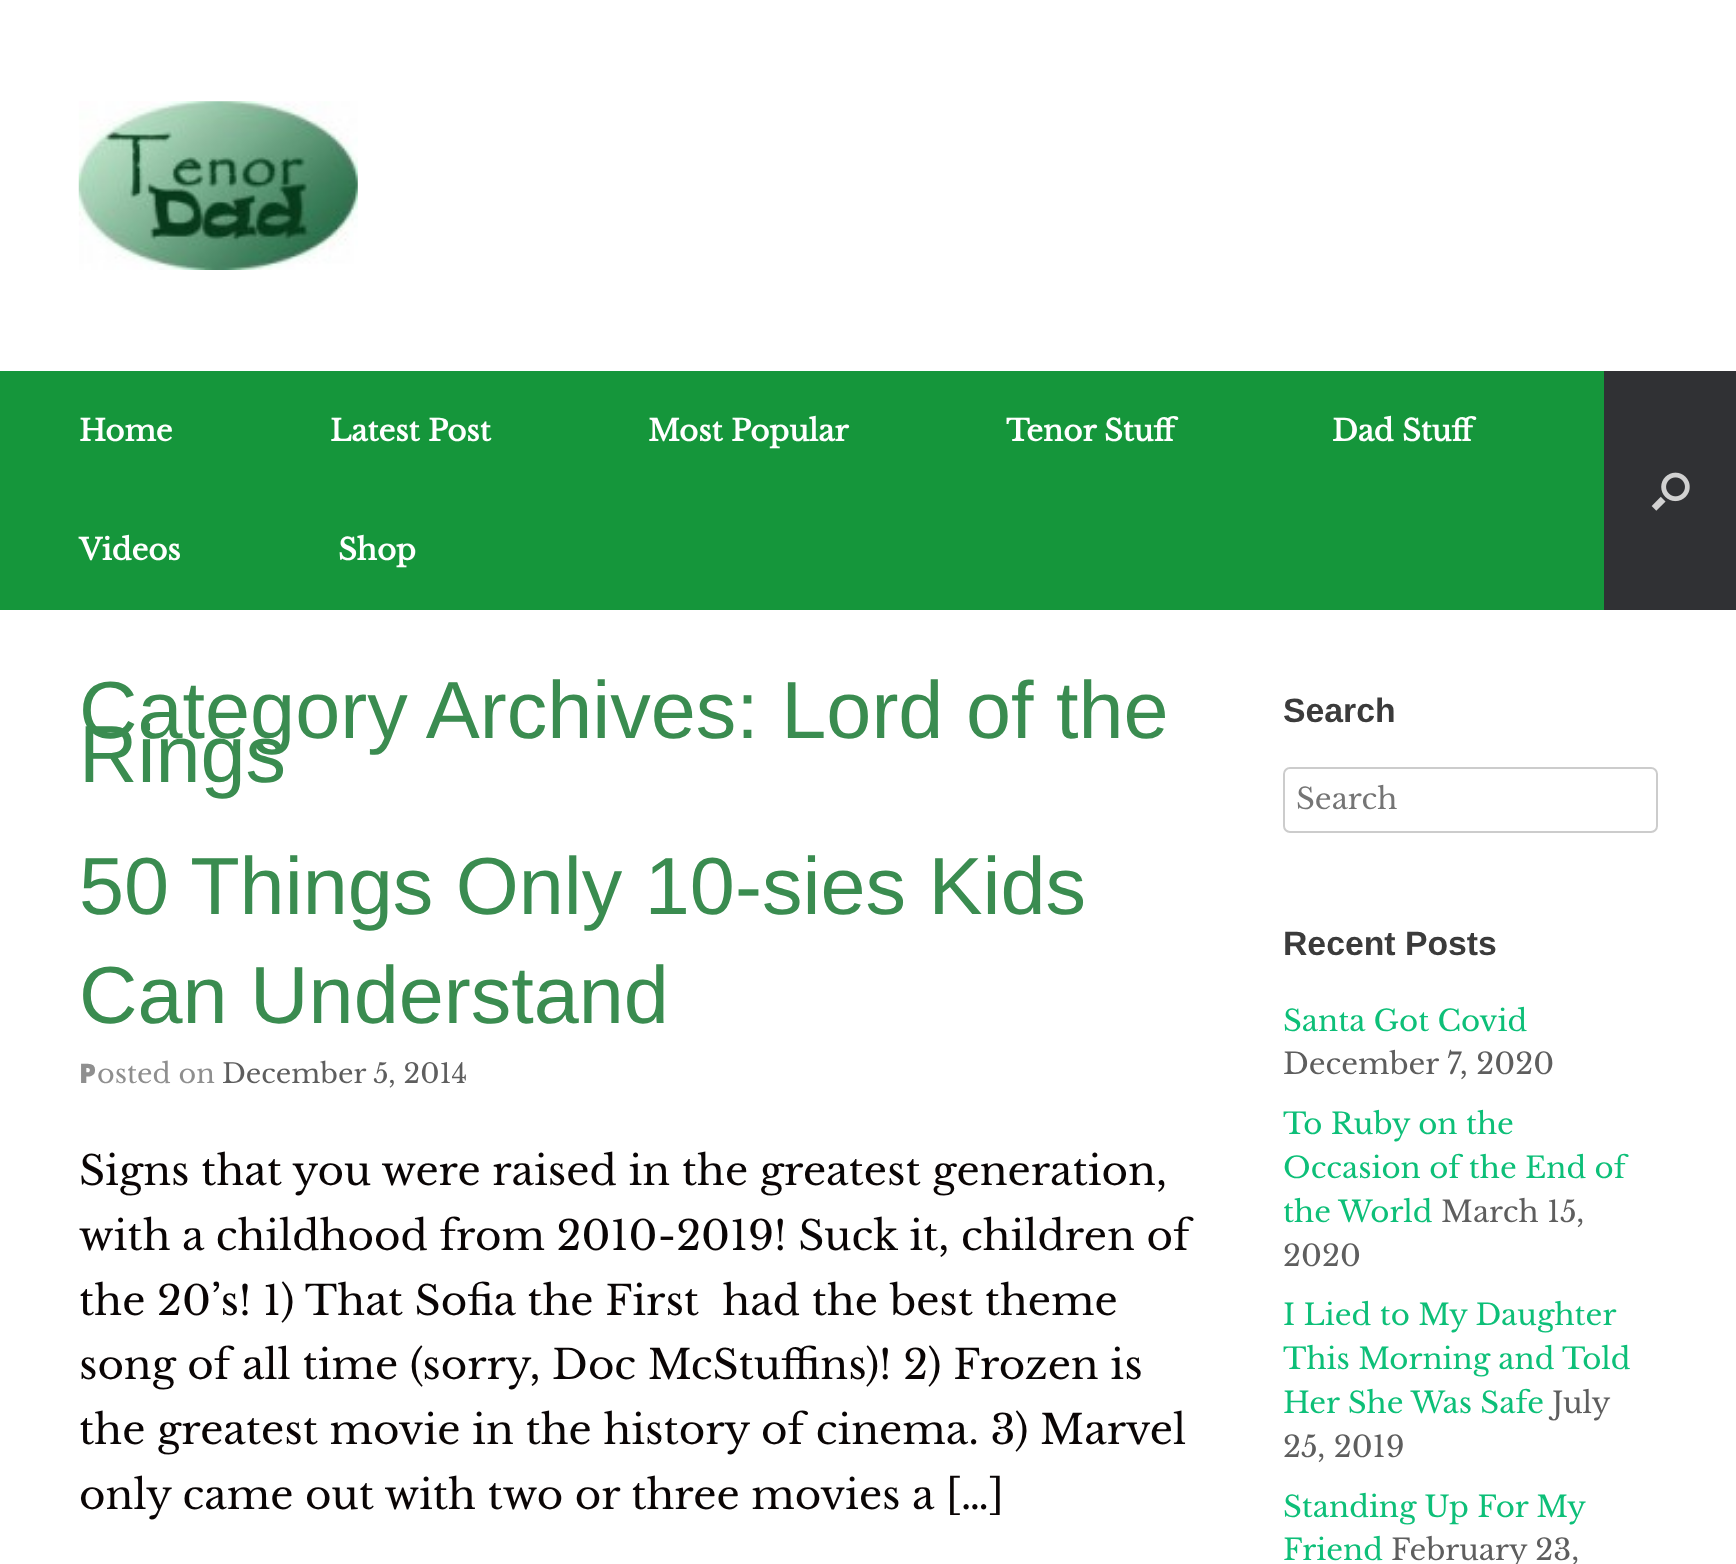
<svg xmlns="http://www.w3.org/2000/svg" width="1736" height="1564" viewBox="0 0 1736 1564">
  <style>
    .t1 { font: bold 29.25px Libre Baskerville; fill: #fff; }
    .t2 { font: 81px Liberation Sans; fill: #3a8c50; }
    .t3 { font: 900 27px Noto Sans; fill: #8f8f8f; }
    .t4 { font: 27px Libre Baskerville; fill: #8f8f8f; }
    .t5 { font: 27px Libre Baskerville; fill: #5e5e5e; }
    .t6 { font: 40.5px Libre Baskerville; fill: #0a0505; }
    .t7 { font: bold 33.75px Liberation Sans; fill: #3b3b3b; }
    .t8 { font: 29.25px Libre Baskerville; fill: #757575; }
    .t9 { font: 29.25px Libre Baskerville; fill: #0dbf78; }
    .t10 { font: 29.25px Libre Baskerville; fill: #5e5e5e; }
  </style>
  <rect width="100%" height="100%" fill="#fff"/>
  <image x="78" y="101" width="280" height="169" href="images/1.png"/>
  <rect x="0" y="371" width="1604" height="239" fill="#15963b"/>
  <text x="79" y="441" class="t1">Home</text>
  <text x="330" y="441" class="t1">Latest Post</text>
  <text x="648" y="441" class="t1">Most Popular</text>
  <text x="1006" y="441" class="t1">Tenor Stuff</text>
  <text x="1332" y="441" class="t1">Dad Stuff</text>
  <text x="79" y="560" class="t1">Videos</text>
  <text x="338" y="560" class="t1">Shop</text>
  <rect x="1604" y="371" width="132" height="239" fill="#303134"/>
  <image x="1651" y="472" width="39" height="39" href="images/2.png"/>
  <text x="79" y="738" class="t2">Category Archives: Lord of the</text>
  <text x="79" y="782" class="t2">Rings</text>
  <text x="79" y="914" class="t2">50 Things Only 10-sies Kids</text>
  <text x="79" y="1023" class="t2">Can Understand</text>
  <text x="79" y="1083" class="t3">P</text>
  <text x="97" y="1083" class="t4">osted on</text>
  <text x="222" y="1083" class="t5">December 5, 2014</text>
  <text x="79" y="1185" class="t6">Signs that you were raised in the greatest generation,</text>
  <text x="79" y="1250" class="t6">with a childhood from 2010-2019! Suck it, children of</text>
  <text x="79" y="1315" class="t6" xml:space="preserve">the 20’s! 1) That Sofia the First  had the best theme</text>
  <text x="79" y="1379" class="t6">song of all time (sorry, Doc McStuffins)! 2) Frozen is</text>
  <text x="79" y="1444" class="t6">the greatest movie in the history of cinema. 3) Marvel</text>
  <text x="79" y="1509" class="t6">only came out with two or three movies a […]</text>
  <text x="1283" y="722" class="t7">Search</text>
  <rect x="1284" y="768" width="373" height="64" rx="6" fill="none" stroke="#ccc" stroke-width="2"/>
  <text x="1296" y="809" class="t8">Search</text>
  <text x="1283" y="955" class="t7">Recent Posts</text>
  <text x="1283" y="1031" class="t9">Santa Got Covid</text>
  <text x="1283" y="1074" class="t10">December 7, 2020</text>
  <text x="1283" y="1134" class="t9">To Ruby on the</text>
  <text x="1283" y="1178" class="t9">Occasion of the End of</text>
  <text x="1283" y="1222" class="t9">the World</text>
  <text x="1441" y="1222" class="t10">March 15,</text>
  <text x="1283" y="1266" class="t10">2020</text>
  <text x="1283" y="1325" class="t9">I Lied to My Daughter</text>
  <text x="1283" y="1369" class="t9">This Morning and Told</text>
  <text x="1283" y="1413" class="t9">Her She Was Safe</text>
  <text x="1552" y="1413" class="t10">July</text>
  <text x="1283" y="1457" class="t10">25, 2019</text>
  <text x="1283" y="1517" class="t9">Standing Up For My</text>
  <text x="1283" y="1560" class="t9">Friend</text>
  <text x="1391" y="1560" class="t10">February 23,</text>
</svg>
